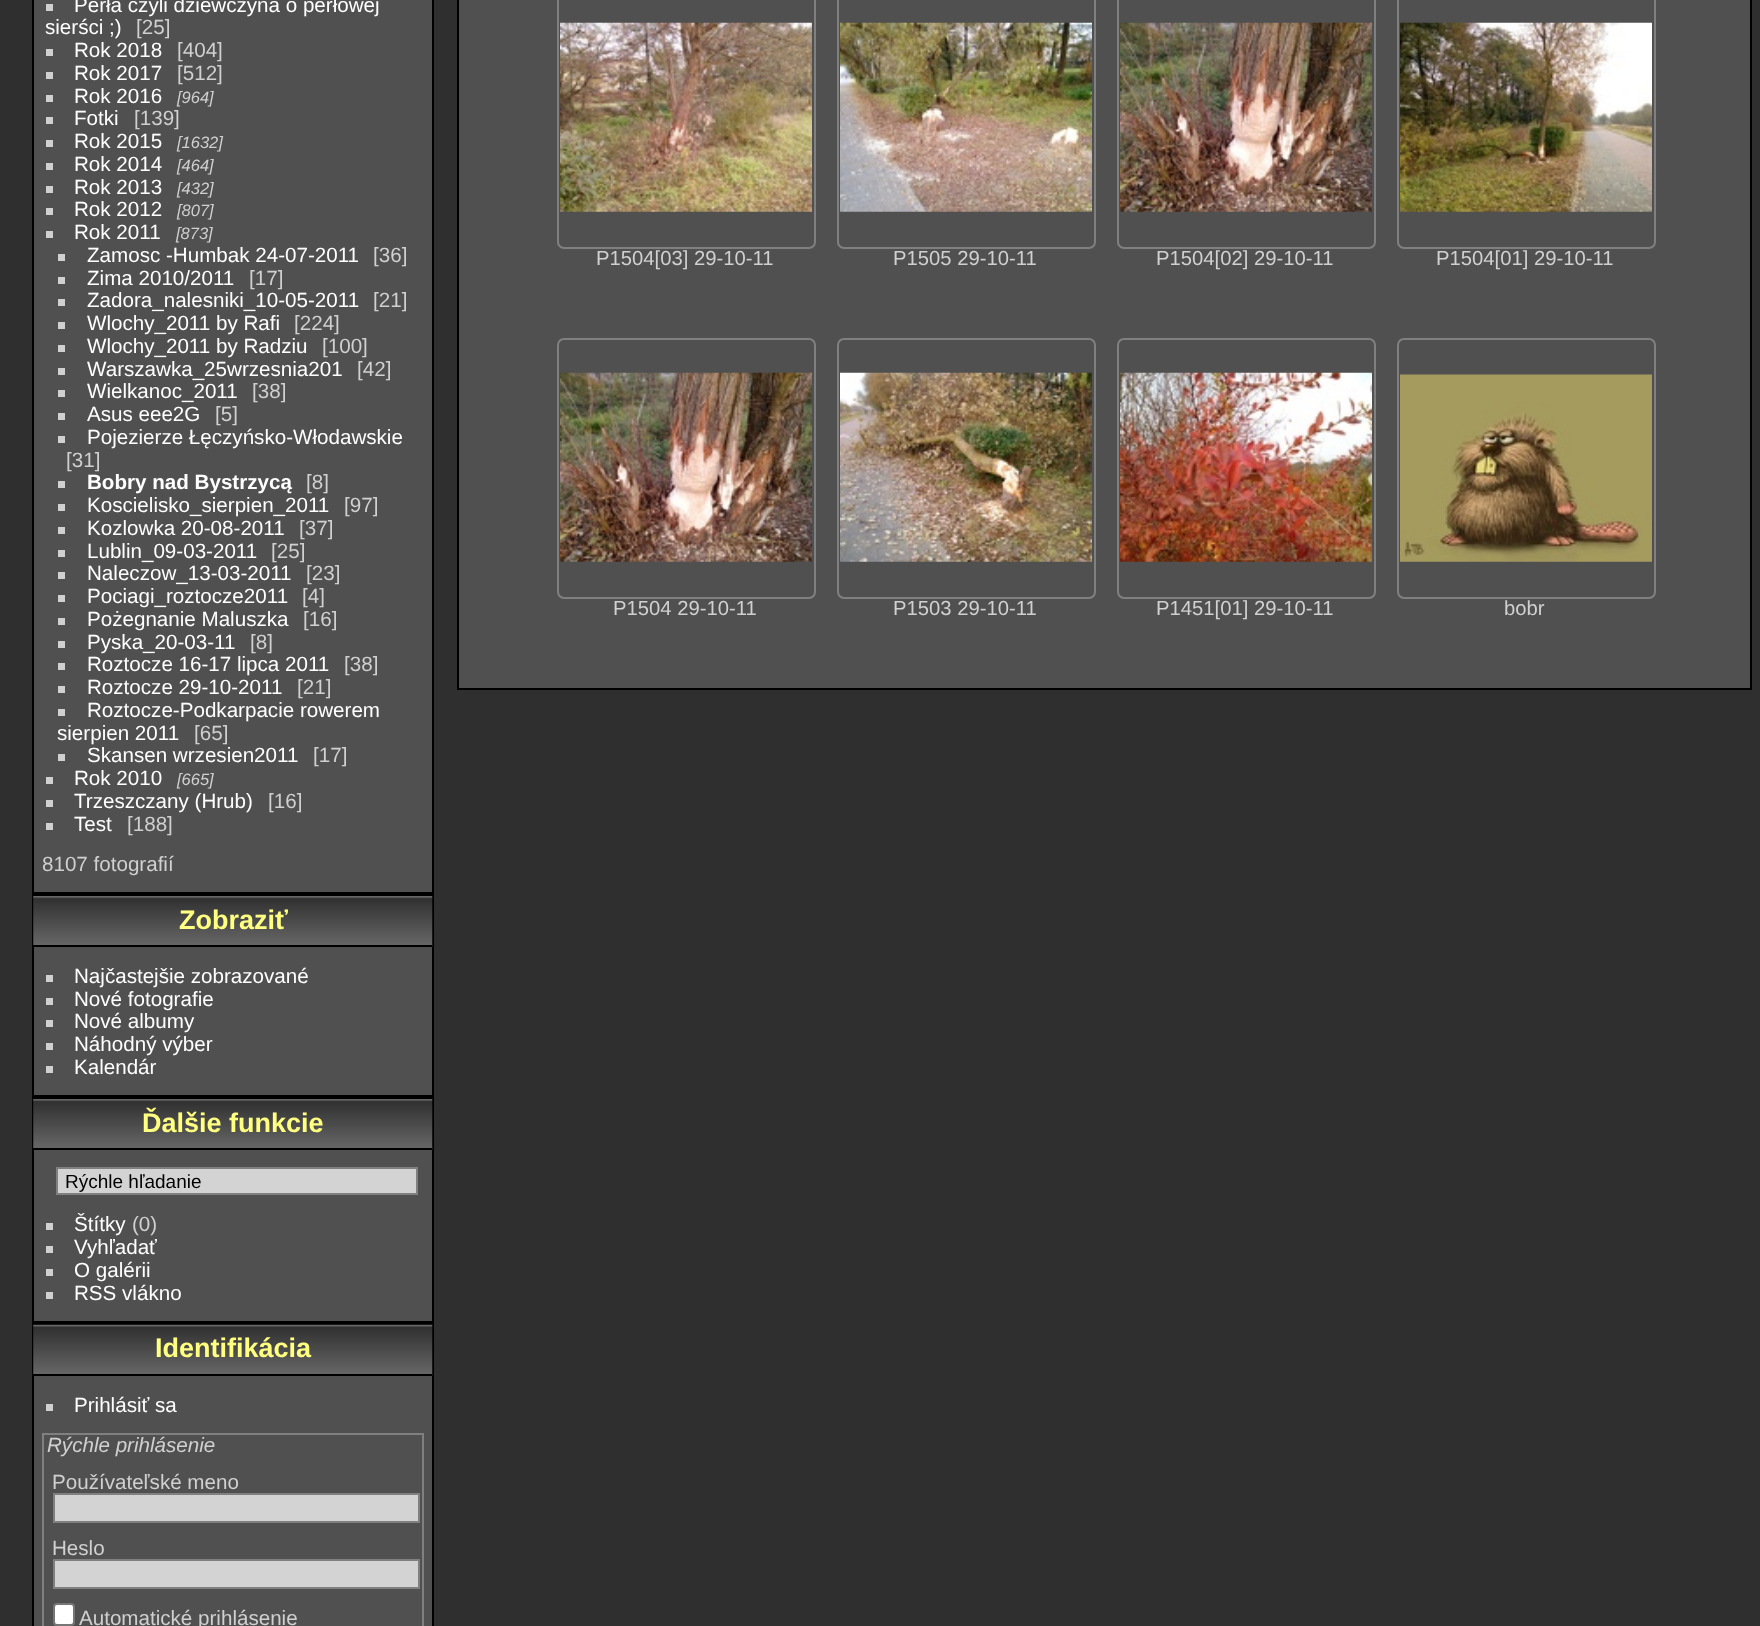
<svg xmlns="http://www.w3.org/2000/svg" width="1760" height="1626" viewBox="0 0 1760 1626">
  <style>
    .t1 { font: 20.6px Liberation Sans; fill: #fff; }
    .t2 { font: 20.6px Liberation Sans; fill: #d0d0d0; }
    .t3 { font: italic 16.5px Liberation Sans; fill: #d0d0d0; }
    .t4 { font: bold 20.6px Liberation Sans; fill: #fff; }
    .t5 { font: bold 27px Liberation Sans; fill: #ffff80; }
    .t6 { font: 19px Liberation Sans; fill: #000; }
    .t7 { font: italic 20.6px Liberation Sans; fill: #d0d0d0; }
    .t8 { font: 20.25px Liberation Sans; fill: #d0d0d0; }
  </style>
  <rect width="100%" height="100%" fill="#2f2f2f"/>
  <rect x="33" y="-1" width="400" height="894" fill="#505050" stroke="#000" stroke-width="2"/>
  <rect x="46" y="4" width="7" height="7" fill="#d0d0d0"/>
  <text x="74" y="12" class="t1">Perła czyli dziewczyna o perłowej</text>
  <text x="45" y="34" class="t1">sierści ;)</text>
  <text x="136" y="34" class="t2">[25]</text>
  <rect x="46" y="49" width="7" height="7" fill="#d0d0d0"/>
  <text x="74" y="57" class="t1">Rok 2018</text>
  <text x="177" y="57" class="t2">[404]</text>
  <rect x="46" y="72" width="7" height="7" fill="#d0d0d0"/>
  <text x="74" y="80" class="t1">Rok 2017</text>
  <text x="177" y="80" class="t2">[512]</text>
  <rect x="46" y="95" width="7" height="7" fill="#d0d0d0"/>
  <text x="74" y="103" class="t1">Rok 2016</text>
  <text x="177" y="103" class="t3">[964]</text>
  <rect x="46" y="117" width="7" height="7" fill="#d0d0d0"/>
  <text x="74" y="125" class="t1">Fotki</text>
  <text x="134" y="125" class="t2">[139]</text>
  <rect x="46" y="140" width="7" height="7" fill="#d0d0d0"/>
  <text x="74" y="148" class="t1">Rok 2015</text>
  <text x="177" y="148" class="t3">[1632]</text>
  <rect x="46" y="163" width="7" height="7" fill="#d0d0d0"/>
  <text x="74" y="171" class="t1">Rok 2014</text>
  <text x="177" y="171" class="t3">[464]</text>
  <rect x="46" y="186" width="7" height="7" fill="#d0d0d0"/>
  <text x="74" y="194" class="t1">Rok 2013</text>
  <text x="177" y="194" class="t3">[432]</text>
  <rect x="46" y="208" width="7" height="7" fill="#d0d0d0"/>
  <text x="74" y="216" class="t1">Rok 2012</text>
  <text x="177" y="216" class="t3">[807]</text>
  <rect x="46" y="231" width="7" height="7" fill="#d0d0d0"/>
  <text x="74" y="239" class="t1">Rok 2011</text>
  <text x="176" y="239" class="t3">[873]</text>
  <rect x="58" y="254" width="7" height="7" fill="#d0d0d0"/>
  <text x="87" y="262" class="t1">Zamosc -Humbak 24-07-2011</text>
  <text x="373" y="262" class="t2">[36]</text>
  <rect x="58" y="277" width="7" height="7" fill="#d0d0d0"/>
  <text x="87" y="285" class="t1">Zima 2010/2011</text>
  <text x="249" y="285" class="t2">[17]</text>
  <rect x="58" y="299" width="7" height="7" fill="#d0d0d0"/>
  <text x="87" y="307" class="t1">Zadora_nalesniki_10-05-2011</text>
  <text x="373" y="307" class="t2">[21]</text>
  <rect x="58" y="322" width="7" height="7" fill="#d0d0d0"/>
  <text x="87" y="330" class="t1">Wlochy_2011 by Rafi</text>
  <text x="294" y="330" class="t2">[224]</text>
  <rect x="58" y="345" width="7" height="7" fill="#d0d0d0"/>
  <text x="87" y="353" class="t1">Wlochy_2011 by Radziu</text>
  <text x="322" y="353" class="t2">[100]</text>
  <rect x="58" y="368" width="7" height="7" fill="#d0d0d0"/>
  <text x="87" y="376" class="t1">Warszawka_25wrzesnia201</text>
  <text x="357" y="376" class="t2">[42]</text>
  <rect x="58" y="390" width="7" height="7" fill="#d0d0d0"/>
  <text x="87" y="398" class="t1">Wielkanoc_2011</text>
  <text x="252" y="398" class="t2">[38]</text>
  <rect x="58" y="413" width="7" height="7" fill="#d0d0d0"/>
  <text x="87" y="421" class="t1">Asus eee2G</text>
  <text x="215" y="421" class="t2">[5]</text>
  <rect x="58" y="436" width="7" height="7" fill="#d0d0d0"/>
  <text x="87" y="444" class="t1">Pojezierze Łęczyńsko-Włodawskie</text>
  <text x="66" y="467" class="t2">[31]</text>
  <rect x="58" y="481" width="7" height="7" fill="#d0d0d0"/>
  <text x="87" y="489" class="t4">Bobry nad Bystrzycą</text>
  <text x="306" y="489" class="t2">[8]</text>
  <rect x="58" y="504" width="7" height="7" fill="#d0d0d0"/>
  <text x="87" y="512" class="t1">Koscielisko_sierpien_2011</text>
  <text x="344" y="512" class="t2">[97]</text>
  <rect x="58" y="527" width="7" height="7" fill="#d0d0d0"/>
  <text x="87" y="535" class="t1">Kozlowka 20-08-2011</text>
  <text x="299" y="535" class="t2">[37]</text>
  <rect x="58" y="550" width="7" height="7" fill="#d0d0d0"/>
  <text x="87" y="558" class="t1">Lublin_09-03-2011</text>
  <text x="271" y="558" class="t2">[25]</text>
  <rect x="58" y="572" width="7" height="7" fill="#d0d0d0"/>
  <text x="87" y="580" class="t1">Naleczow_13-03-2011</text>
  <text x="306" y="580" class="t2">[23]</text>
  <rect x="58" y="595" width="7" height="7" fill="#d0d0d0"/>
  <text x="87" y="603" class="t1">Pociagi_roztocze2011</text>
  <text x="302" y="603" class="t2">[4]</text>
  <rect x="58" y="618" width="7" height="7" fill="#d0d0d0"/>
  <text x="87" y="626" class="t1">Pożegnanie Maluszka</text>
  <text x="303" y="626" class="t2">[16]</text>
  <rect x="58" y="641" width="7" height="7" fill="#d0d0d0"/>
  <text x="87" y="649" class="t1">Pyska_20-03-11</text>
  <text x="250" y="649" class="t2">[8]</text>
  <rect x="58" y="663" width="7" height="7" fill="#d0d0d0"/>
  <text x="87" y="671" class="t1">Roztocze 16-17 lipca 2011</text>
  <text x="344" y="671" class="t2">[38]</text>
  <rect x="58" y="686" width="7" height="7" fill="#d0d0d0"/>
  <text x="87" y="694" class="t1">Roztocze 29-10-2011</text>
  <text x="297" y="694" class="t2">[21]</text>
  <rect x="58" y="709" width="7" height="7" fill="#d0d0d0"/>
  <text x="87" y="717" class="t1">Roztocze-Podkarpacie rowerem</text>
  <text x="57" y="740" class="t1">sierpien 2011</text>
  <text x="194" y="740" class="t2">[65]</text>
  <rect x="58" y="754" width="7" height="7" fill="#d0d0d0"/>
  <text x="87" y="762" class="t1">Skansen wrzesien2011</text>
  <text x="313" y="762" class="t2">[17]</text>
  <rect x="46" y="777" width="7" height="7" fill="#d0d0d0"/>
  <text x="74" y="785" class="t1">Rok 2010</text>
  <text x="177" y="785" class="t3">[665]</text>
  <rect x="46" y="800" width="7" height="7" fill="#d0d0d0"/>
  <text x="74" y="808" class="t1">Trzeszczany (Hrub)</text>
  <text x="268" y="808" class="t2">[16]</text>
  <rect x="46" y="823" width="7" height="7" fill="#d0d0d0"/>
  <text x="74" y="831" class="t1">Test</text>
  <text x="127" y="831" class="t2">[188]</text>
  <text x="42" y="871" class="t2">8107 fotografií</text>
  <rect x="34" y="947" width="398" height="148" fill="#505050"/>
  <rect x="33" y="895" width="400" height="201" fill="none" stroke="#000" stroke-width="2"/>
  <image x="33" y="896" width="400" height="51" href="images/1.png"/>
  <rect x="33" y="945" width="399" height="2" fill="#000"/>
  <text x="179" y="929" class="t5">Zobraziť</text>
  <rect x="46" y="975" width="7" height="7" fill="#d0d0d0"/>
  <text x="74" y="983" class="t1">Najčastejšie zobrazované</text>
  <rect x="46" y="998" width="7" height="7" fill="#d0d0d0"/>
  <text x="74" y="1006" class="t1">Nové fotografie</text>
  <rect x="46" y="1020" width="7" height="7" fill="#d0d0d0"/>
  <text x="74" y="1028" class="t1">Nové albumy</text>
  <rect x="46" y="1043" width="7" height="7" fill="#d0d0d0"/>
  <text x="74" y="1051" class="t1">Náhodný výber</text>
  <rect x="46" y="1066" width="7" height="7" fill="#d0d0d0"/>
  <text x="74" y="1074" class="t1">Kalendár</text>
  <rect x="34" y="1150" width="398" height="171" fill="#505050"/>
  <rect x="33" y="1098" width="400" height="224" fill="none" stroke="#000" stroke-width="2"/>
  <image x="33" y="1099" width="400" height="51" href="images/1.png"/>
  <rect x="33" y="1148" width="399" height="2" fill="#000"/>
  <text x="142" y="1132" class="t5">Ďalšie funkcie</text>
  <rect x="57" y="1168" width="360" height="26" fill="#d3d3d3" stroke="#808080" stroke-width="2"/>
  <text x="65" y="1188" class="t6">Rýchle hľadanie</text>
  <rect x="46" y="1223" width="7" height="7" fill="#d0d0d0"/>
  <text x="74" y="1231" class="t1">Štítky</text>
  <text x="132" y="1231" class="t2">(0)</text>
  <rect x="46" y="1246" width="7" height="7" fill="#d0d0d0"/>
  <text x="74" y="1254" class="t1">Vyhľadať</text>
  <rect x="46" y="1269" width="7" height="7" fill="#d0d0d0"/>
  <text x="74" y="1277" class="t1">O galérii</text>
  <rect x="46" y="1292" width="7" height="7" fill="#d0d0d0"/>
  <text x="74" y="1300" class="t1">RSS vlákno</text>
  <rect x="34" y="1376" width="398" height="250" fill="#505050"/>
  <rect x="33" y="1324" width="400" height="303" fill="none" stroke="#000" stroke-width="2"/>
  <image x="33" y="1324" width="400" height="52" href="images/2.png"/>
  <rect x="33" y="1374" width="399" height="2" fill="#000"/>
  <text x="155" y="1357" class="t5">Identifikácia</text>
  <rect x="46" y="1404" width="7" height="7" fill="#d0d0d0"/>
  <text x="74" y="1412" class="t1">Prihlásiť sa</text>
  <rect x="43" y="1434" width="380" height="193" fill="none" stroke="#808080" stroke-width="2"/>
  <text x="47" y="1452" class="t7">Rýchle prihlásenie</text>
  <text x="52" y="1489" class="t2">Používateľské meno</text>
  <rect x="54" y="1494" width="365" height="28" fill="#d3d3d3" stroke="#808080" stroke-width="2"/>
  <text x="52" y="1555" class="t2">Heslo</text>
  <rect x="54" y="1560" width="365" height="28" fill="#d3d3d3" stroke="#808080" stroke-width="2"/>
  <rect x="54" y="1604" width="20" height="21" rx="3" fill="#fff" stroke="#767676" stroke-width="2"/>
  <text x="79" y="1625" class="t2">Automatické prihlásenie</text>
  <rect x="458" y="-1" width="1293" height="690" fill="#505050" stroke="#000" stroke-width="2"/>
  <rect x="558" y="-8" width="257" height="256" rx="6" fill="none" stroke="#808080" stroke-width="2"/>
  <image x="560" y="22" width="252" height="190" href="images/3.png"/>
  <text x="596" y="265" class="t8">P1504[03] 29-10-11</text>
  <rect x="838" y="-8" width="257" height="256" rx="6" fill="none" stroke="#808080" stroke-width="2"/>
  <image x="840" y="22" width="252" height="190" href="images/4.png"/>
  <text x="893" y="265" class="t8">P1505 29-10-11</text>
  <rect x="1118" y="-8" width="257" height="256" rx="6" fill="none" stroke="#808080" stroke-width="2"/>
  <image x="1120" y="22" width="252" height="190" href="images/5.png"/>
  <text x="1156" y="265" class="t8">P1504[02] 29-10-11</text>
  <rect x="1398" y="-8" width="257" height="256" rx="6" fill="none" stroke="#808080" stroke-width="2"/>
  <image x="1400" y="22" width="252" height="190" href="images/6.png"/>
  <text x="1436" y="265" class="t8">P1504[01] 29-10-11</text>
  <rect x="558" y="339" width="257" height="259" rx="6" fill="none" stroke="#808080" stroke-width="2"/>
  <image x="560" y="372" width="252" height="190" href="images/7.png"/>
  <text x="613" y="615" class="t8">P1504 29-10-11</text>
  <rect x="838" y="339" width="257" height="259" rx="6" fill="none" stroke="#808080" stroke-width="2"/>
  <image x="840" y="372" width="252" height="190" href="images/8.png"/>
  <text x="893" y="615" class="t8">P1503 29-10-11</text>
  <rect x="1118" y="339" width="257" height="259" rx="6" fill="none" stroke="#808080" stroke-width="2"/>
  <image x="1120" y="372" width="252" height="190" href="images/9.png"/>
  <text x="1156" y="615" class="t8">P1451[01] 29-10-11</text>
  <rect x="1398" y="339" width="257" height="259" rx="6" fill="none" stroke="#808080" stroke-width="2"/>
  <image x="1400" y="374" width="252" height="188" href="images/10.png"/>
  <text x="1504" y="615" class="t8">bobr</text>
</svg>
